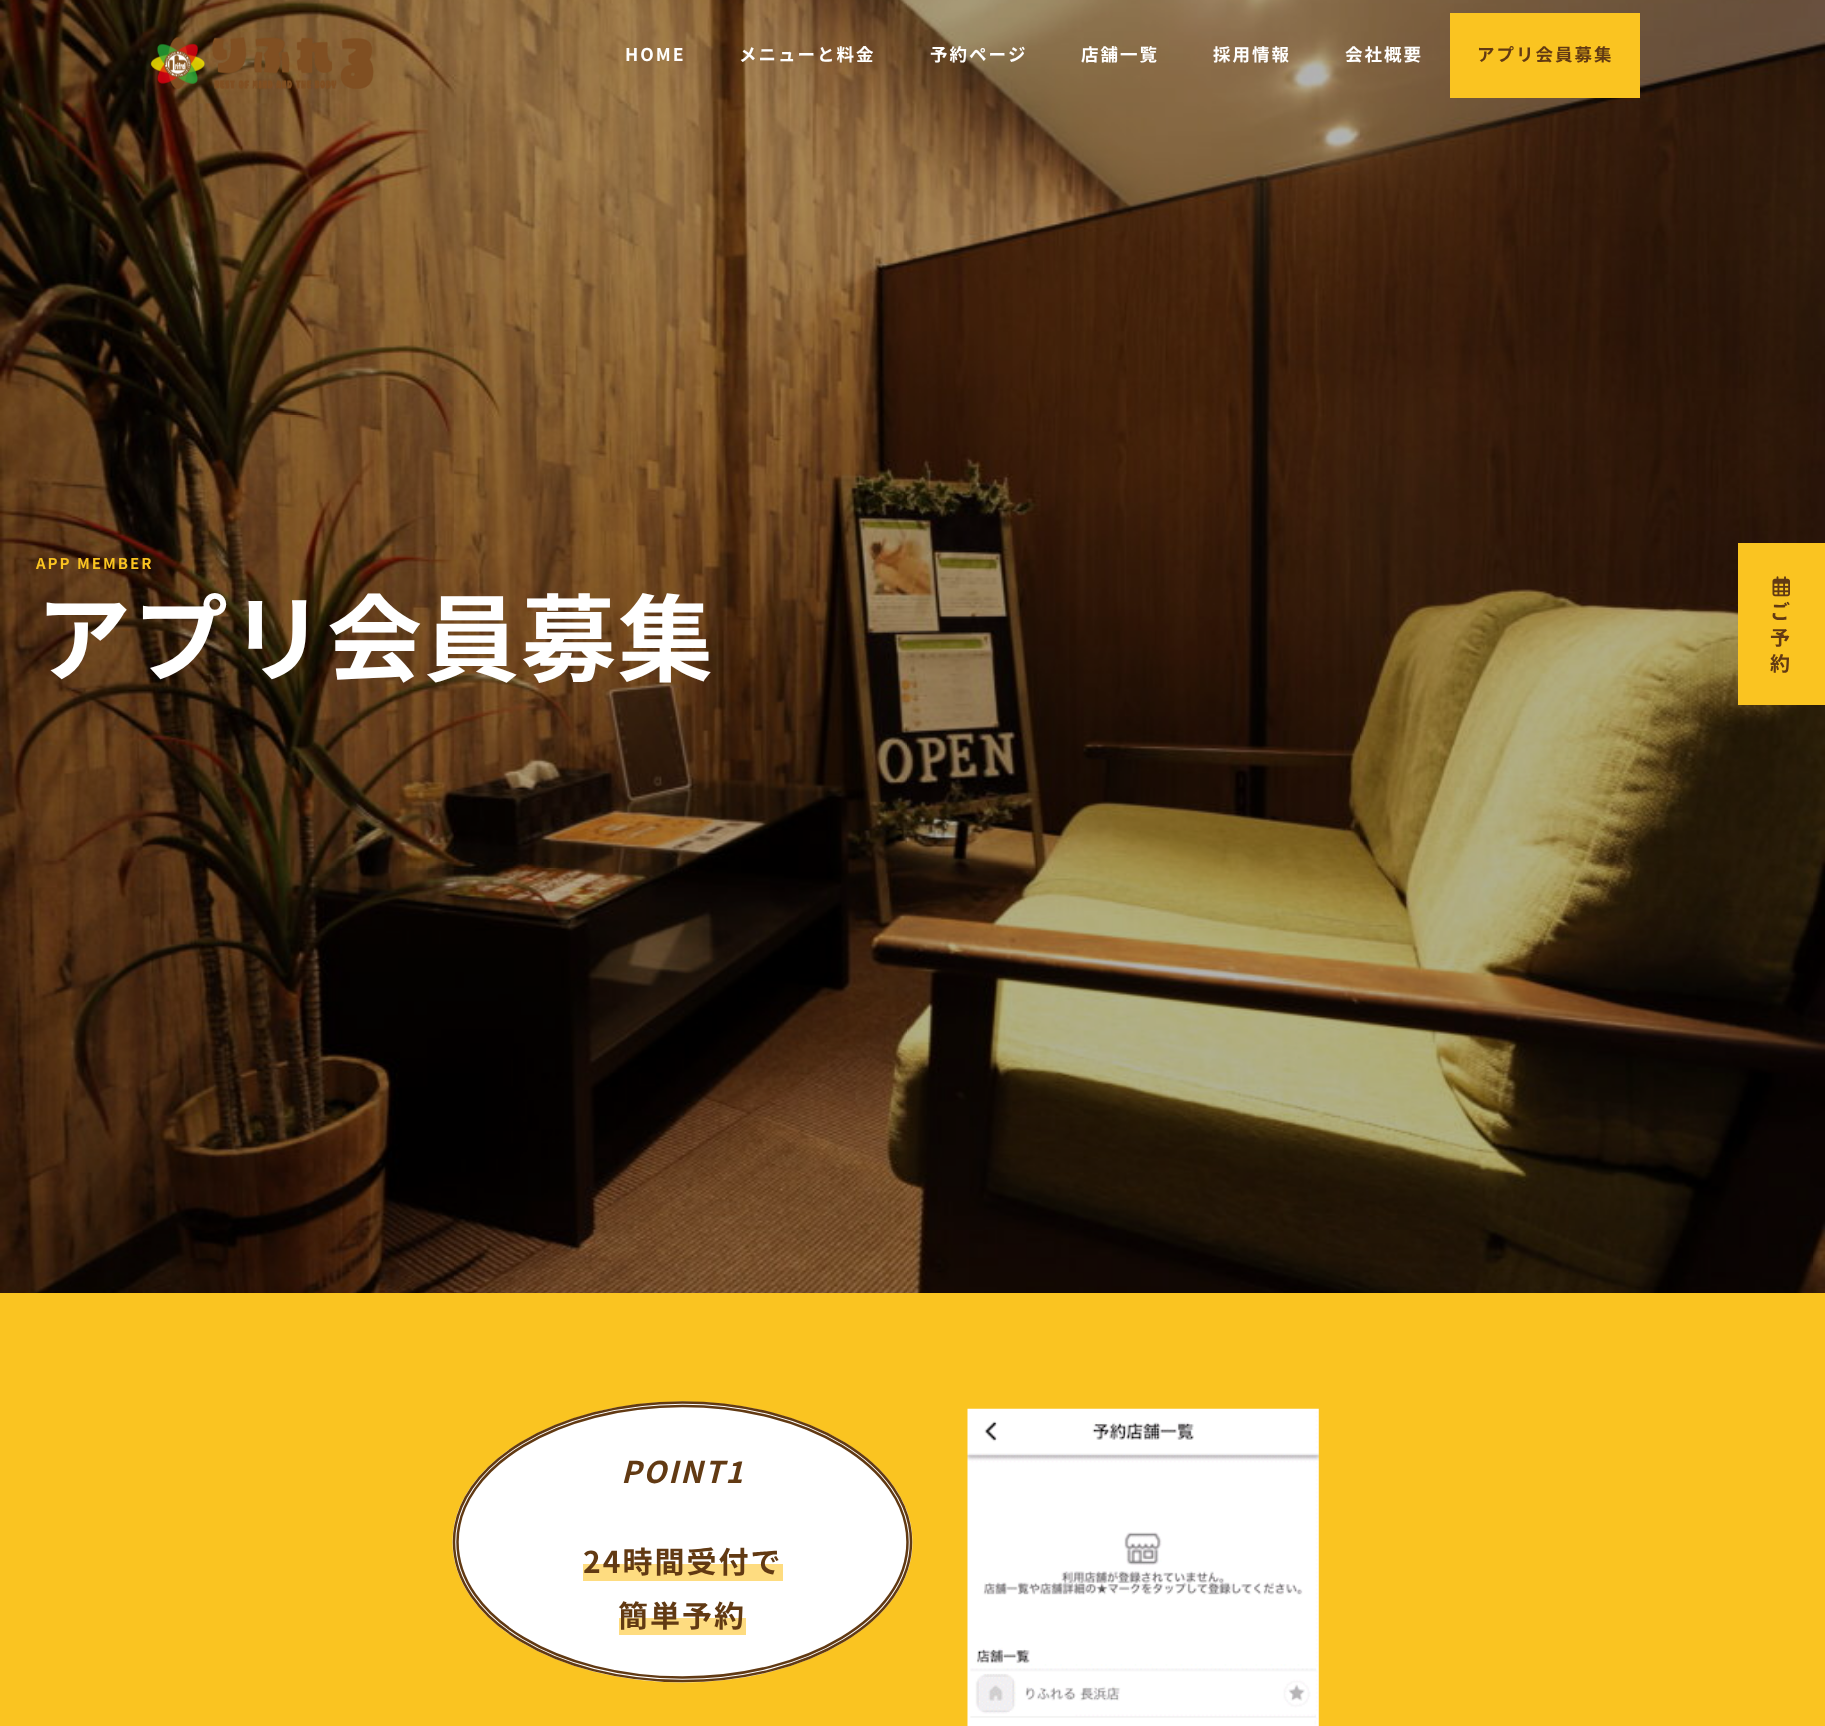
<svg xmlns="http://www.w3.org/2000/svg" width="1825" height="1726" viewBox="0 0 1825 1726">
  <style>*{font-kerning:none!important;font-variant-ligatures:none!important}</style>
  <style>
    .t1 { font: bold 17.5px Noto Sans JP; letter-spacing: 2px; fill: #fff; }
    .t2 { font: bold 17.5px Noto Sans JP; letter-spacing: 2px; fill: #623a13; }
    .t3 { font: bold 20px Noto Sans JP; letter-spacing: 2px; fill: #623a13; }
    .t4 { font: bold 15px Noto Sans JP; letter-spacing: 2px; fill: #fac421; }
    .t5 { font: bold 95px Noto Sans JP; letter-spacing: 2px; fill: #fff; }
    .t6 { font: italic bold 30px Noto Sans JP; letter-spacing: 2px; fill: #623a13; }
    .t7 { font: bold 30px Noto Sans JP; letter-spacing: 2px; fill: #623a13; }
  </style>
  <rect width="100%" height="100%" fill="#000"/>
  <image x="0" y="0" width="1825" height="1293" href="images/3.png"/>
  <image x="150" y="37" width="224" height="52" href="images/1.png"/>
  <text x="625" y="61" class="t1">HOME</text>
  <text x="739" y="61" class="t1">メニューと料金</text>
  <text x="930" y="61" class="t1">予約ページ</text>
  <text x="1081" y="61" class="t1">店舗一覧</text>
  <text x="1213" y="61" class="t1">採用情報</text>
  <text x="1345" y="61" class="t1">会社概要</text>
  <rect x="1450" y="13" width="190" height="85" fill="#fac421"/>
  <text x="1477" y="61" class="t2">アプリ会員募集</text>
  <rect x="1738" y="543" width="87" height="162" fill="#fac421"/>
  <image x="1772" y="576" width="18" height="21" href="images/2.png"/>
  <text x="1770" y="619" class="t3">ご</text>
  <text x="1770" y="645" class="t3">予</text>
  <text x="1770" y="671" class="t3">約</text>
  <text x="36" y="569" class="t4">APP MEMBER</text>
  <text x="36" y="674" class="t5">アプリ会員募集</text>
  <rect x="0" y="1293" width="1825" height="433" fill="#fac421"/>
  <ellipse cx="682.5" cy="1542" rx="230" ry="140.5" fill="#fff"/>
  <path d="M682.5 1402.5C809 1402.5 911 1465 911 1542C911 1619 809 1681 682.5 1681C556 1681 454 1619 454 1542C454 1465 556 1402.5 682.5 1402.5Z" fill="none" stroke="#623a13" stroke-width="2.5"/>
  <path d="M682.5 1406C807 1406 907.5 1467 907.5 1542C907.5 1617 807 1677.5 682.5 1677.5C558 1677.5 457.5 1617 457.5 1542C457.5 1467 558 1406 682.5 1406Z" fill="none" stroke="#623a13" stroke-width="2.5"/>
  <text x="621" y="1483" class="t6">POINT1</text>
  <rect x="583" y="1564" width="200" height="17" fill="#fedc80"/>
  <text x="583" y="1573" class="t7">24時間受付で</text>
  <rect x="619" y="1618" width="127" height="17" fill="#fedc80"/>
  <text x="618" y="1627" class="t7">簡単予約</text>
  <image x="967" y="1408" width="352" height="318" href="images/4.png"/>
</svg>
